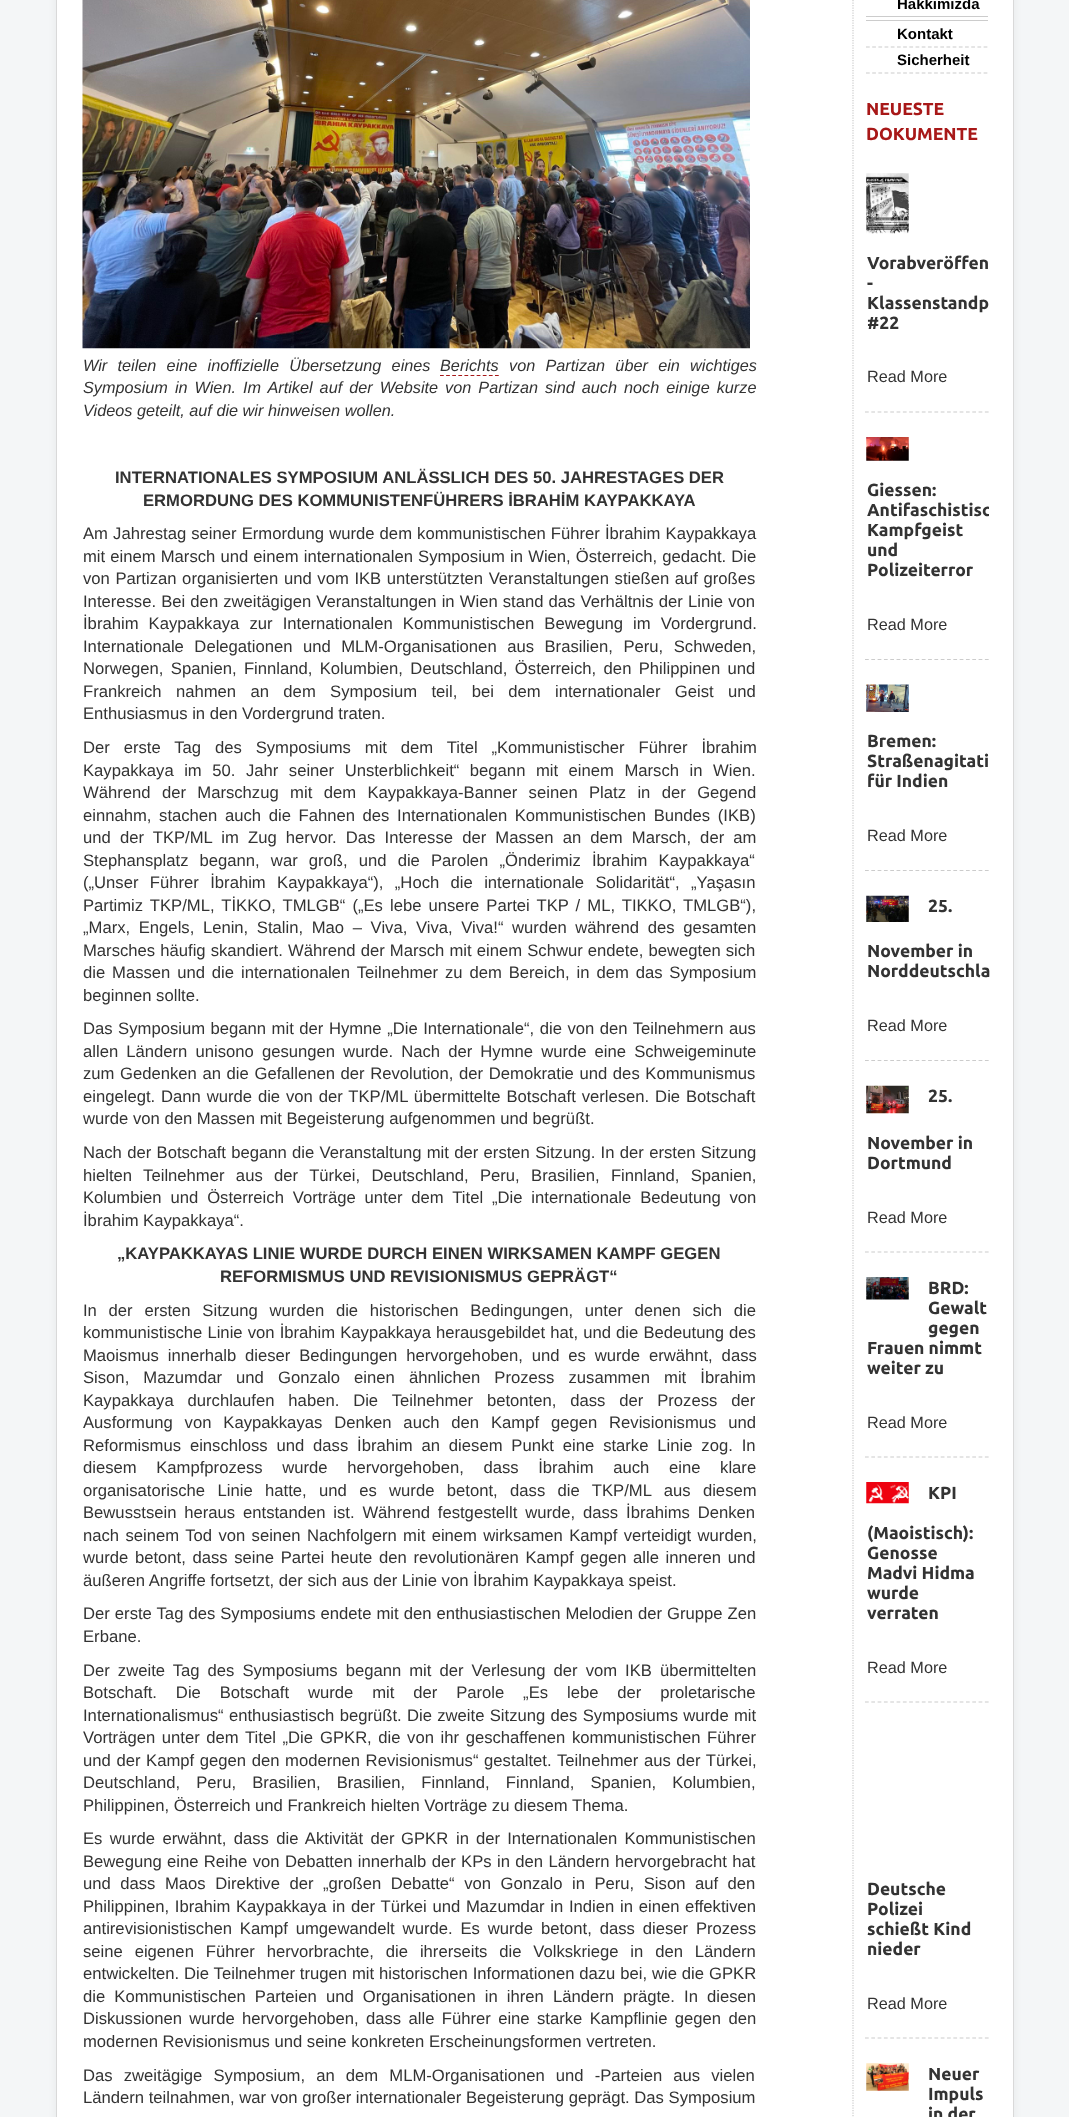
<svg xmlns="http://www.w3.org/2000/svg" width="1069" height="2117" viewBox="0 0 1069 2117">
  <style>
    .t1 { font: italic 16.25px Liberation Sans; fill: #333; }
    .t2 { font: bold 16.65px Liberation Sans; fill: #333; }
    .t3 { font: 16.65px Liberation Sans; fill: #333; }
    .t4 { font: bold 15px Liberation Sans; fill: #000; }
    .t5 { font: bold 17.5px Ubuntu; fill: #a81818; }
    .t6 { font: bold 17.5px Ubuntu; fill: #333; }
    .t7 { font: 16.25px Liberation Sans; fill: #333; }
  </style>
  <defs>
    <clipPath id="clip1"><rect x="865" y="150" width="124" height="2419"/></clipPath>
  </defs>
  <rect width="100%" height="100%" fill="#f4f6f7"/>
  <rect x="56" y="-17" width="958" height="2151" rx="5" fill="#0000000d" filter="blur(4px)"/>
  <rect x="56.5" y="-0.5" width="957" height="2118" fill="#fff" stroke="#d9d9d9"/>
  <image x="82" y="0" width="668" height="349" href="images/1.png"/>
  <text x="83" y="371" word-spacing="5.75" class="t1">Wir teilen eine inoffizielle Übersetzung eines</text>
  <text x="440" y="371" class="t1">Berichts</text>
  <path d="M440 375.5H499" fill="none" stroke="#a81818" stroke-width="1.2" stroke-dasharray="3.75 2.36"/>
  <text x="509" y="371" word-spacing="5.75" class="t1">von Partizan über ein wichtiges</text>
  <text x="83" y="393" word-spacing="2.5" class="t1">Symposium in Wien. Im Artikel auf der Website von Partizan sind auch noch einige kurze</text>
  <text x="83" y="416" class="t1">Videos geteilt, auf die wir hinweisen wollen.</text>
  <text x="115" y="483" class="t2">INTERNATIONALES SYMPOSIUM ANLÄSSLICH DES 50. JAHRESTAGES DER</text>
  <text x="143" y="506" class="t2">ERMORDUNG DES KOMMUNISTENFÜHRERS İBRAHİM KAYPAKKAYA</text>
  <text x="83" y="539" word-spacing="0.5" class="t3">Am Jahrestag seiner Ermordung wurde dem kommunistischen Führer İbrahim Kaypakkaya</text>
  <text x="83" y="562" word-spacing="0.5" class="t3">mit einem Marsch und einem internationalen Symposium in Wien, Österreich, gedacht. Die</text>
  <text x="83" y="584" word-spacing="1" class="t3">von Partizan organisierten und vom IKB unterstützten Veranstaltungen stießen auf großes</text>
  <text x="83" y="607" word-spacing="0.5" class="t3">Interesse. Bei den zweitägigen Veranstaltungen in Wien stand das Verhältnis der Linie von</text>
  <text x="83" y="629" word-spacing="5.5" class="t3">İbrahim Kaypakkaya zur Internationalen Kommunistischen Bewegung im Vordergrund.</text>
  <text x="83" y="652" word-spacing="5.9" class="t3">Internationale Delegationen und MLM-Organisationen aus Brasilien, Peru, Schweden,</text>
  <text x="83" y="674" word-spacing="2.75" class="t3">Norwegen, Spanien, Finnland, Kolumbien, Deutschland, Österreich, den Philippinen und</text>
  <text x="83" y="697" word-spacing="9.75" class="t3">Frankreich nahmen an dem Symposium teil, bei dem internationaler Geist und</text>
  <text x="83" y="719" class="t3">Enthusiasmus in den Vordergrund traten.</text>
  <text x="83" y="753" word-spacing="9.25" class="t3">Der erste Tag des Symposiums mit dem Titel „Kommunistischer Führer İbrahim</text>
  <text x="83" y="776" word-spacing="5.9" class="t3">Kaypakkaya im 50. Jahr seiner Unsterblichkeit“ begann mit einem Marsch in Wien.</text>
  <text x="83" y="798" word-spacing="6.75" class="t3">Während der Marschzug mit dem Kaypakkaya-Banner seinen Platz in der Gegend</text>
  <text x="83" y="821" word-spacing="3" class="t3">einnahm, stachen auch die Fahnen des Internationalen Kommunistischen Bundes (IKB)</text>
  <text x="83" y="843" word-spacing="4.5" class="t3">und der TKP/ML im Zug hervor. Das Interesse der Massen an dem Marsch, der am</text>
  <text x="83" y="866" word-spacing="6.5" class="t3">Stephansplatz begann, war groß, und die Parolen „Önderimiz İbrahim Kaypakkaya“</text>
  <text x="83" y="888" word-spacing="6.75" class="t3">(„Unser Führer İbrahim Kaypakkaya“), „Hoch die internationale Solidarität“, „Yaşasın</text>
  <text x="83" y="911" word-spacing="2.4" class="t3">Partimiz TKP/ML, TİKKO, TMLGB“ („Es lebe unsere Partei TKP / ML, TIKKO, TMLGB“),</text>
  <text x="83" y="933" word-spacing="4" class="t3">„Marx, Engels, Lenin, Stalin, Mao – Viva, Viva, Viva!“ wurden während des gesamten</text>
  <text x="83" y="956" word-spacing="0.5" class="t3">Marsches häufig skandiert. Während der Marsch mit einem Schwur endete, bewegten sich</text>
  <text x="83" y="978" word-spacing="2.25" class="t3">die Massen und die internationalen Teilnehmer zu dem Bereich, in dem das Symposium</text>
  <text x="83" y="1001" class="t3">beginnen sollte.</text>
  <text x="83" y="1034" word-spacing="0.9" class="t3">Das Symposium begann mit der Hymne „Die Internationale“, die von den Teilnehmern aus</text>
  <text x="83" y="1057" word-spacing="3.5" class="t3">allen Ländern unisono gesungen wurde. Nach der Hymne wurde eine Schweigeminute</text>
  <text x="83" y="1079" word-spacing="1" class="t3">zum Gedenken an die Gefallenen der Revolution, der Demokratie und des Kommunismus</text>
  <text x="83" y="1102" word-spacing="1.25" class="t3">eingelegt. Dann wurde die von der TKP/ML übermittelte Botschaft verlesen. Die Botschaft</text>
  <text x="83" y="1124" class="t3">wurde von den Massen mit Begeisterung aufgenommen und begrüßt.</text>
  <text x="83" y="1158" word-spacing="0.7" class="t3">Nach der Botschaft begann die Veranstaltung mit der ersten Sitzung. In der ersten Sitzung</text>
  <text x="83" y="1181" word-spacing="6.75" class="t3">hielten Teilnehmer aus der Türkei, Deutschland, Peru, Brasilien, Finnland, Spanien,</text>
  <text x="83" y="1203" word-spacing="4.25" class="t3">Kolumbien und Österreich Vorträge unter dem Titel „Die internationale Bedeutung von</text>
  <text x="83" y="1226" class="t3">İbrahim Kaypakkaya“.</text>
  <text x="117" y="1259" class="t2">„KAYPAKKAYAS LINIE WURDE DURCH EINEN WIRKSAMEN KAMPF GEGEN</text>
  <text x="220" y="1282" class="t2">REFORMISMUS UND REVISIONISMUS GEPRÄGT“</text>
  <text x="83" y="1316" word-spacing="7.1" class="t3">In der ersten Sitzung wurden die historischen Bedingungen, unter denen sich die</text>
  <text x="83" y="1338" word-spacing="0.5" class="t3">kommunistische Linie von İbrahim Kaypakkaya herausgebildet hat, und die Bedeutung des</text>
  <text x="83" y="1361" word-spacing="4.25" class="t3">Maoismus innerhalb dieser Bedingungen hervorgehoben, und es wurde erwähnt, dass</text>
  <text x="83" y="1383" word-spacing="9.5" class="t3">Sison, Mazumdar und Gonzalo einen ähnlichen Prozess zusammen mit İbrahim</text>
  <text x="83" y="1406" word-spacing="9.25" class="t3">Kaypakkaya durchlaufen haben. Die Teilnehmer betonten, dass der Prozess der</text>
  <text x="83" y="1428" word-spacing="7.25" class="t3">Ausformung von Kaypakkayas Denken auch den Kampf gegen Revisionismus und</text>
  <text x="83" y="1451" word-spacing="4.25" class="t3">Reformismus einschloss und dass İbrahim an diesem Punkt eine starke Linie zog. In</text>
  <text x="83" y="1473" word-spacing="15" class="t3">diesem Kampfprozess wurde hervorgehoben, dass İbrahim auch eine klare</text>
  <text x="83" y="1496" word-spacing="7.75" class="t3">organisatorische Linie hatte, und es wurde betont, dass die TKP/ML aus diesem</text>
  <text x="83" y="1518" word-spacing="3.25" class="t3">Bewusstsein heraus entstanden ist. Während festgestellt wurde, dass İbrahims Denken</text>
  <text x="83" y="1541" word-spacing="1.75" class="t3">nach seinem Tod von seinen Nachfolgern mit einem wirksamen Kampf verteidigt wurden,</text>
  <text x="83" y="1563" word-spacing="2" class="t3">wurde betont, dass seine Partei heute den revolutionären Kampf gegen alle inneren und</text>
  <text x="83" y="1586" class="t3">äußeren Angriffe fortsetzt, der sich aus der Linie von İbrahim Kaypakkaya speist.</text>
  <text x="83" y="1619" word-spacing="0.4" class="t3">Der erste Tag des Symposiums endete mit den enthusiastischen Melodien der Gruppe Zen</text>
  <text x="83" y="1642" class="t3">Erbane.</text>
  <text x="83" y="1676" word-spacing="3.4" class="t3">Der zweite Tag des Symposiums begann mit der Verlesung der vom IKB übermittelten</text>
  <text x="83" y="1698" word-spacing="14.25" class="t3">Botschaft. Die Botschaft wurde mit der Parole „Es lebe der proletarische</text>
  <text x="83" y="1721" word-spacing="0.7" class="t3">Internationalismus“ enthusiastisch begrüßt. Die zweite Sitzung des Symposiums wurde mit</text>
  <text x="83" y="1743" word-spacing="2" class="t3">Vorträgen unter dem Titel „Die</text>
  <text x="320" y="1743" class="t3">GPKR</text>
  <text x="367" y="1743" word-spacing="2" class="t3">, die von ihr geschaffenen kommunistischen Führer</text>
  <text x="83" y="1766" word-spacing="1" class="t3">und der Kampf gegen den modernen Revisionismus“ gestaltet. Teilnehmer aus der Türkei,</text>
  <text x="83" y="1788" word-spacing="11.5" class="t3">Deutschland, Peru, Brasilien, Brasilien, Finnland, Finnland, Spanien, Kolumbien,</text>
  <text x="83" y="1811" class="t3">Philippinen, Österreich und Frankreich hielten Vorträge zu diesem Thema.</text>
  <text x="83" y="1844" word-spacing="2.75" class="t3">Es wurde erwähnt, dass die Aktivität der</text>
  <text x="401" y="1844" class="t3">GPKR</text>
  <text x="456" y="1844" word-spacing="2.5" class="t3">in der Internationalen Kommunistischen</text>
  <text x="83" y="1867" word-spacing="0.75" class="t3">Bewegung eine Reihe von Debatten innerhalb der KPs in den Ländern hervorgebracht hat</text>
  <text x="83" y="1889" word-spacing="4.9" class="t3">und dass Maos Direktive der „großen Debatte“ von Gonzalo in Peru, Sison auf den</text>
  <text x="83" y="1912" word-spacing="1.1" class="t3">Philippinen, Ibrahim Kaypakkaya in der Türkei und Mazumdar in Indien in einen effektiven</text>
  <text x="83" y="1934" word-spacing="3.25" class="t3">antirevisionistischen Kampf umgewandelt wurde. Es wurde betont, dass dieser Prozess</text>
  <text x="83" y="1957" word-spacing="7.25" class="t3">seine eigenen Führer hervorbrachte, die ihrerseits die Volkskriege in den Ländern</text>
  <text x="83" y="1979" word-spacing="0.25" class="t3">entwickelten. Die Teilnehmer trugen mit historischen Informationen dazu bei, wie die</text>
  <text x="709" y="1979" class="t3">GPKR</text>
  <text x="83" y="2002" word-spacing="4.5" class="t3">die Kommunistischen Parteien und Organisationen in ihren Ländern prägte. In diesen</text>
  <text x="83" y="2024" word-spacing="2.75" class="t3">Diskussionen wurde hervorgehoben, dass alle Führer eine starke Kampflinie gegen den</text>
  <text x="83" y="2047" class="t3">modernen Revisionismus und seine konkreten Erscheinungsformen vertreten.</text>
  <text x="83" y="2081" word-spacing="6.5" class="t3">Das zweitägige Symposium, an dem MLM-Organisationen und -Parteien aus vielen</text>
  <text x="83" y="2103" class="t3">Ländern teilnahmen, war von großer internationaler Begeisterung geprägt. Das Symposium</text>
  <path d="M853-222.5V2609" fill="none" stroke="#ccc" stroke-width="1.2" stroke-dasharray="1.25 1.25"/>
  <rect x="866" y="16" width="122" height="1" fill="#ccc"/>
  <text x="897" y="9" class="t4">Hakkımızda</text>
  <rect x="866" y="20" width="122" height="1" fill="#ccc"/>
  <path d="M866 47H987.5" fill="none" stroke="#ccc" stroke-width="1.2" stroke-dasharray="3.75 2.44"/>
  <text x="897" y="39" class="t4">Kontakt</text>
  <path d="M866 73H987.5" fill="none" stroke="#ccc" stroke-width="1.2" stroke-dasharray="3.75 2.44"/>
  <text x="897" y="65" class="t4">Sicherheit</text>
  <text x="866" y="115" class="t5">NEUESTE</text>
  <text x="866" y="140" class="t5">DOKUMENTE</text>
  <path d="M865 412H989" fill="none" stroke="#ccc" stroke-width="1.2" stroke-dasharray="3.75 2.56"/>
  <image x="866" y="173" width="43" height="61" href="images/2.png"/>
  <text x="867" y="269" class="t6">Vorabveröffen</text>
  <text x="867" y="289" class="t6">-</text>
  <text x="867" y="309" class="t6">Klassenstandp</text>
  <text x="867" y="329" class="t6">#22</text>
  <text x="867" y="382" class="t7">Read More</text>
  <path d="M865 659.5H989" fill="none" stroke="#ccc" stroke-width="1.2" stroke-dasharray="3.75 2.56"/>
  <image x="866" y="437" width="43" height="24" href="images/3.png"/>
  <text x="867" y="496" class="t6">Giessen:</text>
  <g clip-path="url(#clip1)">
    <text x="867" y="516" class="t6">Antifaschistisc</text>
  </g>
  <text x="867" y="536" class="t6">Kampfgeist</text>
  <text x="867" y="556" class="t6">und</text>
  <text x="867" y="576" class="t6">Polizeiterror</text>
  <text x="867" y="630" class="t7">Read More</text>
  <path d="M865 870.5H989" fill="none" stroke="#ccc" stroke-width="1.2" stroke-dasharray="3.75 2.56"/>
  <image x="866" y="684" width="43" height="28" href="images/4.png"/>
  <text x="867" y="747" class="t6">Bremen:</text>
  <text x="867" y="767" class="t6">Straßenagitati</text>
  <text x="867" y="787" class="t6">für Indien</text>
  <text x="867" y="841" class="t7">Read More</text>
  <path d="M865 1060.5H989" fill="none" stroke="#ccc" stroke-width="1.2" stroke-dasharray="3.75 2.56"/>
  <image x="866" y="895" width="43" height="27" href="images/5.png"/>
  <text x="928" y="912" class="t6">25.</text>
  <text x="867" y="957" class="t6">November in</text>
  <text x="867" y="977" class="t6">Norddeutschla</text>
  <text x="867" y="1031" class="t7">Read More</text>
  <path d="M865 1252H989" fill="none" stroke="#ccc" stroke-width="1.2" stroke-dasharray="3.75 2.56"/>
  <image x="866" y="1085" width="43" height="29" href="images/6.png"/>
  <text x="928" y="1102" class="t6">25.</text>
  <text x="867" y="1149" class="t6">November in</text>
  <text x="867" y="1169" class="t6">Dortmund</text>
  <text x="867" y="1223" class="t7">Read More</text>
  <path d="M865 1457H989" fill="none" stroke="#ccc" stroke-width="1.2" stroke-dasharray="3.75 2.56"/>
  <image x="866" y="1277" width="43" height="23" href="images/7.png"/>
  <text x="928" y="1294" class="t6">BRD:</text>
  <text x="928" y="1314" class="t6">Gewalt</text>
  <text x="928" y="1334" class="t6">gegen</text>
  <text x="867" y="1354" class="t6">Frauen nimmt</text>
  <text x="867" y="1374" class="t6">weiter zu</text>
  <text x="867" y="1428" class="t7">Read More</text>
  <path d="M865 1702H989" fill="none" stroke="#ccc" stroke-width="1.2" stroke-dasharray="3.75 2.56"/>
  <image x="866" y="1482" width="43" height="22" href="images/8.png"/>
  <text x="928" y="1499" class="t6">KPI</text>
  <text x="867" y="1539" class="t6">(Maoistisch):</text>
  <text x="867" y="1559" class="t6">Genosse</text>
  <text x="867" y="1579" class="t6">Madvi Hidma</text>
  <text x="867" y="1599" class="t6">wurde</text>
  <text x="867" y="1619" class="t6">verraten</text>
  <text x="867" y="1673" class="t7">Read More</text>
  <path d="M865 2038H989" fill="none" stroke="#ccc" stroke-width="1.2" stroke-dasharray="3.75 2.56"/>
  <text x="867" y="1895" class="t6">Deutsche</text>
  <text x="867" y="1915" class="t6">Polizei</text>
  <text x="867" y="1935" class="t6">schießt Kind</text>
  <text x="867" y="1955" class="t6">nieder</text>
  <text x="867" y="2009" class="t7">Read More</text>
  <image x="866" y="2063" width="43" height="28" href="images/9.png"/>
  <text x="928" y="2080" class="t6">Neuer</text>
  <text x="928" y="2100" class="t6">Impuls</text>
  <text x="928" y="2120" class="t6">in der</text>
</svg>
